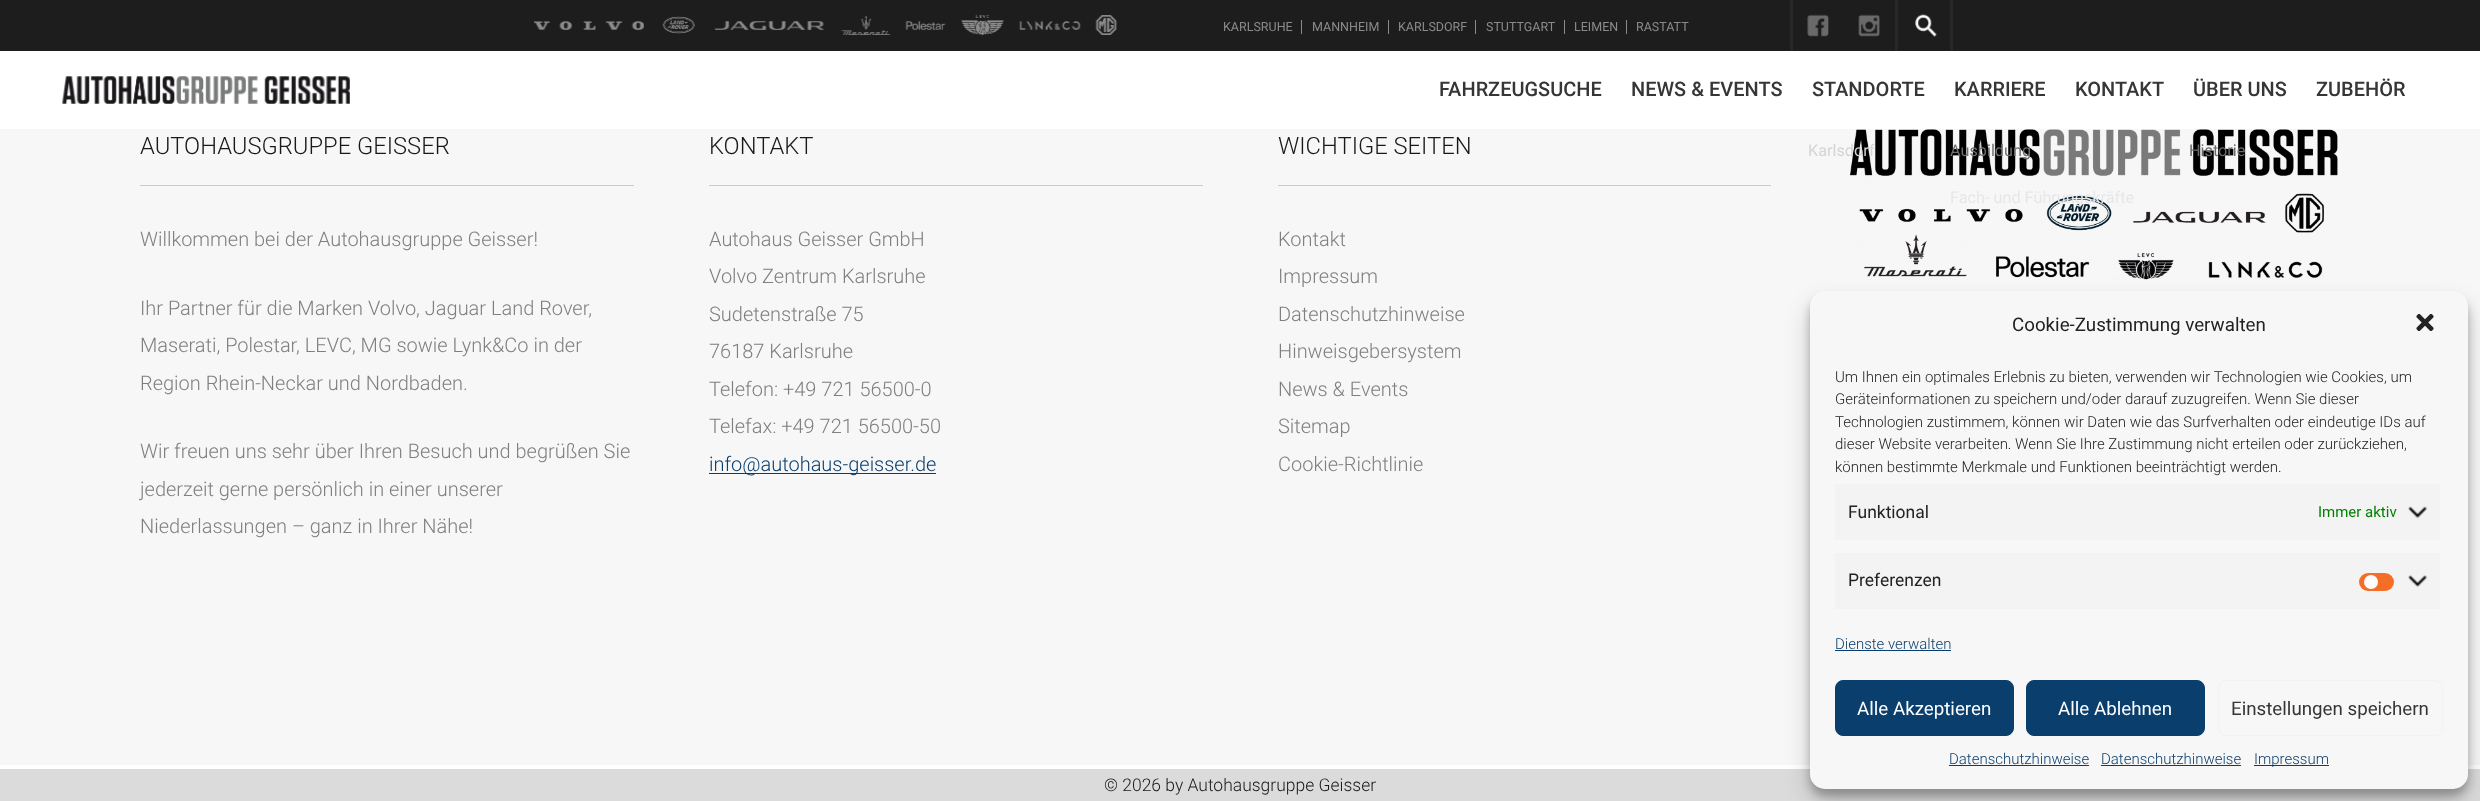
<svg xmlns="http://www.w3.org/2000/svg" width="2480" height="801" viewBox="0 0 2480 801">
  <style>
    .t1 { font: 12.5px Roboto; fill: #8a8a8a; }
    .t2 { font: 500 20px Roboto; fill: #363636; }
    .t3 { font: 16.25px Roboto; fill: #d4d4d4; }
    .t4 { font: 16.25px Roboto; fill: #707070; }
    .t5 { font: 16.25px Roboto; fill: #e6e7e8; }
    .t6 { font: 16.25px Roboto; fill: #6a6a6a; }
    .t7 { font: 300 23.75px Roboto; fill: #191919; }
    .t8 { font: 300 20px Roboto; fill: #7f7f7f; }
    .t9 { font: 300 20px Roboto; fill: #0a3e6d; }
    .t10 { font: 300 17.5px Roboto; fill: #191919; }
    .t11 { font: 18.75px Roboto; fill: #222; }
    .t12 { font: 300 15px Roboto; fill: #222; }
    .t13 { font: 17.5px Roboto; fill: #222; }
    .t14 { font: 15px Roboto; fill: #008000; }
    .t15 { font: 300 15px Roboto; fill: #0a3e6d; }
    .t16 { font: 18.75px Roboto; fill: #fff; }
    .t17 { font: 18.75px Roboto; fill: #363636; }
  </style>
  <rect width="100%" height="100%" fill="#fff"/>
  <rect x="0" y="0" width="2480" height="51" fill="#1d1d1d"/>
  <image x="534" y="21" width="110" height="9" href="images/1.png"/>
  <image x="662" y="16" width="33" height="18" href="images/2.png"/>
  <image x="714" y="21" width="110" height="9" href="images/3.png"/>
  <image x="841" y="15" width="50" height="20" href="images/4.png"/>
  <image x="905" y="21" width="41" height="9" href="images/5.png"/>
  <image x="961" y="15" width="43" height="20" href="images/6.png"/>
  <image x="1019" y="21" width="62" height="9" href="images/7.png"/>
  <image x="1095" y="15" width="22" height="20" href="images/8.png"/>
  <text x="1223" y="31" class="t1">KARLSRUHE</text>
  <rect x="1301" y="20" width="1" height="14" fill="#8a8a8a"/>
  <text x="1312" y="31" class="t1">MANNHEIM</text>
  <rect x="1388" y="20" width="1" height="14" fill="#8a8a8a"/>
  <text x="1398" y="31" class="t1">KARLSDORF</text>
  <rect x="1475" y="20" width="1" height="14" fill="#8a8a8a"/>
  <text x="1486" y="31" class="t1">STUTTGART</text>
  <rect x="1564" y="20" width="1" height="14" fill="#8a8a8a"/>
  <text x="1574" y="31" class="t1">LEIMEN</text>
  <rect x="1626" y="20" width="1" height="14" fill="#8a8a8a"/>
  <text x="1636" y="31" class="t1">RASTATT</text>
  <rect x="1950" y="0" width="3" height="51" fill="#282828"/>
  <rect x="1895" y="0" width="3" height="51" fill="#282828"/>
  <rect x="1790" y="0" width="3" height="51" fill="#282828"/>
  <image x="1807" y="14" width="22" height="23" href="images/9.png"/>
  <image x="1858" y="14" width="22" height="23" href="images/10.png"/>
  <image x="1915" y="14" width="22" height="23" href="images/11.png"/>
  <image x="62" y="76" width="288" height="28" href="images/12.png"/>
  <text x="1439" y="96" class="t2">FAHRZEUGSUCHE</text>
  <text x="1631" y="96" class="t2">NEWS &amp; EVENTS</text>
  <text x="1812" y="96" class="t2">STANDORTE</text>
  <rect x="0" y="129" width="2480" height="636" fill="#f7f7f7"/>
  <image x="1850" y="129" width="488" height="151" href="images/13.png"/>
  <text x="1808" y="156" class="t3">Karlsdorf</text>
  <text x="1954" y="96" class="t2">KARRIERE</text>
  <text x="1950" y="156" class="t4">Ausbildung</text>
  <text x="1950" y="203" class="t5">Fach- und Führungskräfte</text>
  <text x="2193" y="96" class="t2">ÜBER UNS</text>
  <text x="2189" y="156" class="t6">Historie</text>
  <text x="2316" y="96" class="t2">ZUBEHÖR</text>
  <text x="2075" y="96" class="t2">KONTAKT</text>
  <rect x="140" y="185" width="494" height="1" fill="#cbcbcb"/>
  <text x="140" y="154" class="t7">AUTOHAUSGRUPPE GEISSER</text>
  <text x="140" y="246" class="t8">Willkommen bei der Autohausgruppe Geisser!</text>
  <text x="140" y="315" class="t8">Ihr Partner für die Marken Volvo, Jaguar Land Rover,</text>
  <text x="140" y="352" class="t8">Maserati, Polestar, LEVC, MG sowie Lynk&amp;Co in der</text>
  <text x="140" y="390" class="t8">Region Rhein-Neckar und Nordbaden.</text>
  <text x="140" y="458" class="t8">Wir freuen uns sehr über Ihren Besuch und begrüßen Sie</text>
  <text x="140" y="496" class="t8">jederzeit gerne persönlich in einer unserer</text>
  <text x="140" y="533" class="t8">Niederlassungen – ganz in Ihrer Nähe!</text>
  <rect x="709" y="185" width="494" height="1" fill="#cbcbcb"/>
  <text x="709" y="154" class="t7">KONTAKT</text>
  <text x="709" y="246" class="t8">Autohaus Geisser GmbH</text>
  <text x="709" y="283" class="t8">Volvo Zentrum Karlsruhe</text>
  <text x="709" y="321" class="t8">Sudetenstraße 75</text>
  <text x="709" y="358" class="t8">76187 Karlsruhe</text>
  <text x="709" y="396" class="t8">Telefon: +49 721 56500-0</text>
  <text x="709" y="433" class="t8">Telefax: +49 721 56500-50</text>
  <rect x="709" y="473" width="227" height="1" fill="#0a3e6d"/>
  <text x="709" y="471" class="t9">info@autohaus-geisser.de</text>
  <rect x="1278" y="185" width="493" height="1" fill="#cbcbcb"/>
  <text x="1278" y="154" class="t7">WICHTIGE SEITEN</text>
  <text x="1278" y="246" class="t8">Kontakt</text>
  <text x="1278" y="283" class="t8">Impressum</text>
  <text x="1278" y="321" class="t8">Datenschutzhinweise</text>
  <text x="1278" y="358" class="t8">Hinweisgebersystem</text>
  <text x="1278" y="396" class="t8">News &amp; Events</text>
  <text x="1278" y="433" class="t8">Sitemap</text>
  <text x="1278" y="471" class="t8">Cookie-Richtlinie</text>
  <rect x="0" y="769" width="2480" height="32" fill="#dbdbdb"/>
  <text x="1104" y="791" class="t10">© 2026 by Autohausgruppe Geisser</text>
  <rect x="1810" y="299" width="658" height="497" rx="15" fill="#0000003b" filter="blur(4px)"/>
  <rect x="1810" y="304" width="658" height="497" rx="15" fill="#00000030" filter="blur(12.5px)"/>
  <rect x="1810" y="291" width="658" height="498" rx="15" fill="#f7f7f7"/>
  <text x="2012" y="331" class="t11">Cookie-Zustimmung verwalten</text>
  <image x="2416" y="313" width="18" height="18" href="images/14.png"/>
  <text x="1835" y="382" class="t12">Um Ihnen ein optimales Erlebnis zu bieten, verwenden wir Technologien wie Cookies, um</text>
  <text x="1835" y="404" class="t12">Geräteinformationen zu speichern und/oder darauf zuzugreifen. Wenn Sie dieser</text>
  <text x="1835" y="427" class="t12">Technologien zustimmem, können wir Daten wie das Surfverhalten oder eindeutige IDs auf</text>
  <text x="1835" y="449" class="t12">dieser Website verarbeiten. Wenn Sie Ihre Zustimmung nicht erteilen oder zurückziehen,</text>
  <text x="1835" y="472" class="t12">können bestimmte Merkmale und Funktionen beeinträchtigt werden.</text>
  <rect x="1835" y="484" width="605" height="56" fill="#f3f3f3"/>
  <text x="1848" y="518" class="t13">Funktional</text>
  <text x="2318" y="517" class="t14">Immer aktiv</text>
  <image x="2408" y="506" width="20" height="13" href="images/15.png"/>
  <rect x="1835" y="553" width="605" height="56" fill="#f3f3f3"/>
  <text x="1848" y="586" class="t13">Preferenzen</text>
  <rect x="2359" y="573" width="35" height="18" rx="9" fill="#f56e28"/>
  <circle cx="2371" cy="582" r="7" fill="#fff"/>
  <image x="2408" y="575" width="20" height="12" href="images/16.png"/>
  <text x="1835" y="649" class="t15">Dienste verwalten</text>
  <rect x="1835" y="650" width="116" height="1" fill="#0a3e6d"/>
  <rect x="1835.5" y="680.5" width="178" height="55" rx="7.5" fill="#0a3e6d" stroke="#0a3e6d"/>
  <text x="1857" y="715" class="t16">Alle Akzeptieren</text>
  <rect x="2026.5" y="680.5" width="178" height="55" rx="7.5" fill="#0a3e6d" stroke="#0a3e6d"/>
  <text x="2058" y="715" class="t16">Alle Ablehnen</text>
  <rect x="2218.5" y="680.5" width="224" height="55" rx="7.5" fill="none" stroke="#f2f2f2"/>
  <text x="2231" y="715" class="t17">Einstellungen speichern</text>
  <text x="1949" y="764" class="t15">Datenschutzhinweise</text>
  <rect x="1949" y="765" width="140" height="1" fill="#0a3e6d"/>
  <text x="2101" y="764" class="t15">Datenschutzhinweise</text>
  <rect x="2101" y="765" width="140" height="1" fill="#0a3e6d"/>
  <rect x="2254" y="765" width="75" height="1" fill="#0a3e6d"/>
  <text x="2254" y="764" class="t15">Impressum</text>
</svg>
